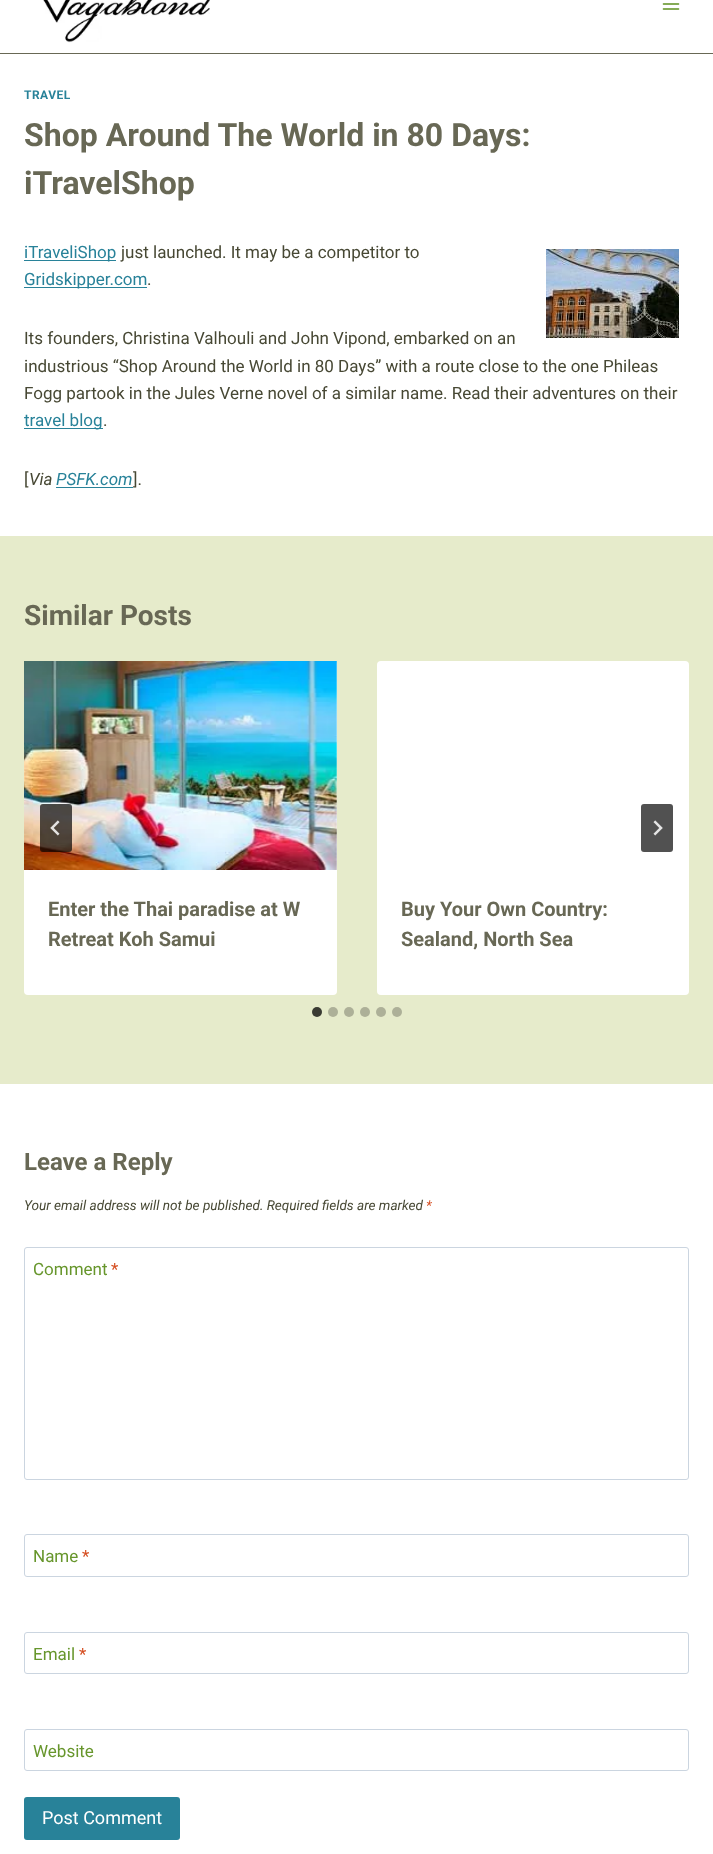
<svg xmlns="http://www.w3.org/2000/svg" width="713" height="1854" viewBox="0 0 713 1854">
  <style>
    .t1 { font: bold 12px Roboto; letter-spacing: 0.5px; fill: #288299; }
    .t2 { font: bold 32px Roboto; fill: #686855; }
    .t3 { font: 17px Roboto; fill: #288299; }
    .t4 { font: 17px Roboto; fill: #474834; }
    .t5 { font: italic 17px Roboto; fill: #474834; }
    .t6 { font: italic 17px Roboto; fill: #288299; }
    .t7 { font: bold 28px Roboto; fill: #686855; }
    .t8 { font: bold 20px Roboto; fill: #686855; }
    .t9 { font: bold 24px Roboto; fill: #686855; }
    .t10 { font: italic 13.6px Roboto; fill: #474834; }
    .t11 { font: italic 13.6px Roboto; fill: #d54e21; }
    .t12 { font: 17px Roboto; fill: #67962c; }
    .t13 { font: 17px Roboto; fill: #d54e21; }
    .t14 { font: 18px Roboto; fill: #fff; }
  </style>
  <rect width="100%" height="100%" fill="#fff"/>
  <rect x="0" y="53" width="713" height="1" fill="#686855"/>
  <image x="43" y="0" width="167" height="43" href="images/1.png"/>
  <image x="662" y="3" width="18" height="7" href="images/2.png"/>
  <text x="24" y="99" class="t1">TRAVEL</text>
  <text x="24" y="146" class="t2">Shop Around The World in 80 Days:</text>
  <text x="24" y="194" class="t2">iTravelShop</text>
  <rect x="24" y="260" width="92" height="1" fill="#288299"/>
  <text x="24" y="258" class="t3">iTraveliShop</text>
  <text x="121" y="258" class="t4">just launched. It may be a competitor to</text>
  <image x="546" y="249" width="133" height="89" href="images/3.png"/>
  <rect x="24" y="287" width="123" height="1" fill="#288299"/>
  <text x="24" y="285" class="t3">Gridskipper.com</text>
  <text x="147" y="285" class="t4">.</text>
  <text x="24" y="344" class="t4">Its founders, Christina Valhouli and John Vipond, embarked on an</text>
  <text x="24" y="372" class="t4">industrious “Shop Around the World in 80 Days” with a route close to the one Phileas</text>
  <text x="24" y="399" class="t4">Fogg partook in the Jules Verne novel of a similar name. Read their adventures on their</text>
  <rect x="24" y="428" width="79" height="1" fill="#288299"/>
  <text x="24" y="426" class="t3">travel blog</text>
  <text x="103" y="426" class="t4">.</text>
  <text x="24" y="485" class="t4">[</text>
  <text x="29" y="485" class="t5">Via</text>
  <text x="56" y="485" class="t6">PSFK.com</text>
  <rect x="56" y="487" width="77" height="1" fill="#288299"/>
  <text x="133" y="485" class="t4">].</text>
  <rect x="0" y="536" width="713" height="548" fill="#e6ebcb"/>
  <text x="24" y="625" class="t7">Similar Posts</text>
  <rect x="24" y="661" width="313" height="334" rx="4" fill="#fff"/>
  <image x="24" y="661" width="313" height="209" href="images/6.png"/>
  <rect x="40" y="804" width="32" height="48" rx="3" fill="#000000ad"/>
  <image x="50" y="820" width="10" height="16" href="images/4.png"/>
  <rect x="377" y="661" width="312" height="334" rx="4" fill="#fff"/>
  <rect x="641" y="804" width="32" height="48" rx="3" fill="#515151"/>
  <image x="653" y="820" width="10" height="16" href="images/5.png"/>
  <text x="48" y="916" class="t8">Enter the Thai paradise at W</text>
  <text x="48" y="946" class="t8">Retreat Koh Samui</text>
  <text x="401" y="916" class="t8">Buy Your Own Country:</text>
  <text x="401" y="946" class="t8">Sealand, North Sea</text>
  <circle cx="317" cy="1012" r="5" fill="#3a3b33"/>
  <circle cx="333" cy="1012" r="5" fill="#adb098"/>
  <circle cx="349" cy="1012" r="5" fill="#adb098"/>
  <circle cx="365" cy="1012" r="5" fill="#adb098"/>
  <circle cx="381" cy="1012" r="5" fill="#adb098"/>
  <circle cx="397" cy="1012" r="5" fill="#adb098"/>
  <text x="24" y="1170" class="t9">Leave a Reply</text>
  <text x="24" y="1210" class="t10">Your email address will not be published. Required fields are marked</text>
  <text x="426" y="1210" class="t11">*</text>
  <rect x="24.5" y="1247.5" width="664" height="232" rx="2.5" fill="none" stroke="#cbd5e0"/>
  <text x="33" y="1275" class="t12">Comment</text>
  <text x="111" y="1275" class="t13">*</text>
  <rect x="24.5" y="1534.5" width="664" height="42" rx="2.5" fill="none" stroke="#cbd5e0"/>
  <text x="33" y="1562" class="t12">Name</text>
  <text x="82" y="1562" class="t13">*</text>
  <rect x="24.5" y="1632.5" width="664" height="41" rx="2.5" fill="none" stroke="#cbd5e0"/>
  <text x="33" y="1660" class="t12">Email</text>
  <text x="79" y="1660" class="t13">*</text>
  <rect x="24.5" y="1729.5" width="664" height="41" rx="2.5" fill="none" stroke="#cbd5e0"/>
  <text x="33" y="1757" class="t12">Website</text>
  <rect x="24" y="1797" width="156" height="43" rx="3" fill="#288299"/>
  <text x="42" y="1824" class="t14">Post Comment</text>
</svg>
